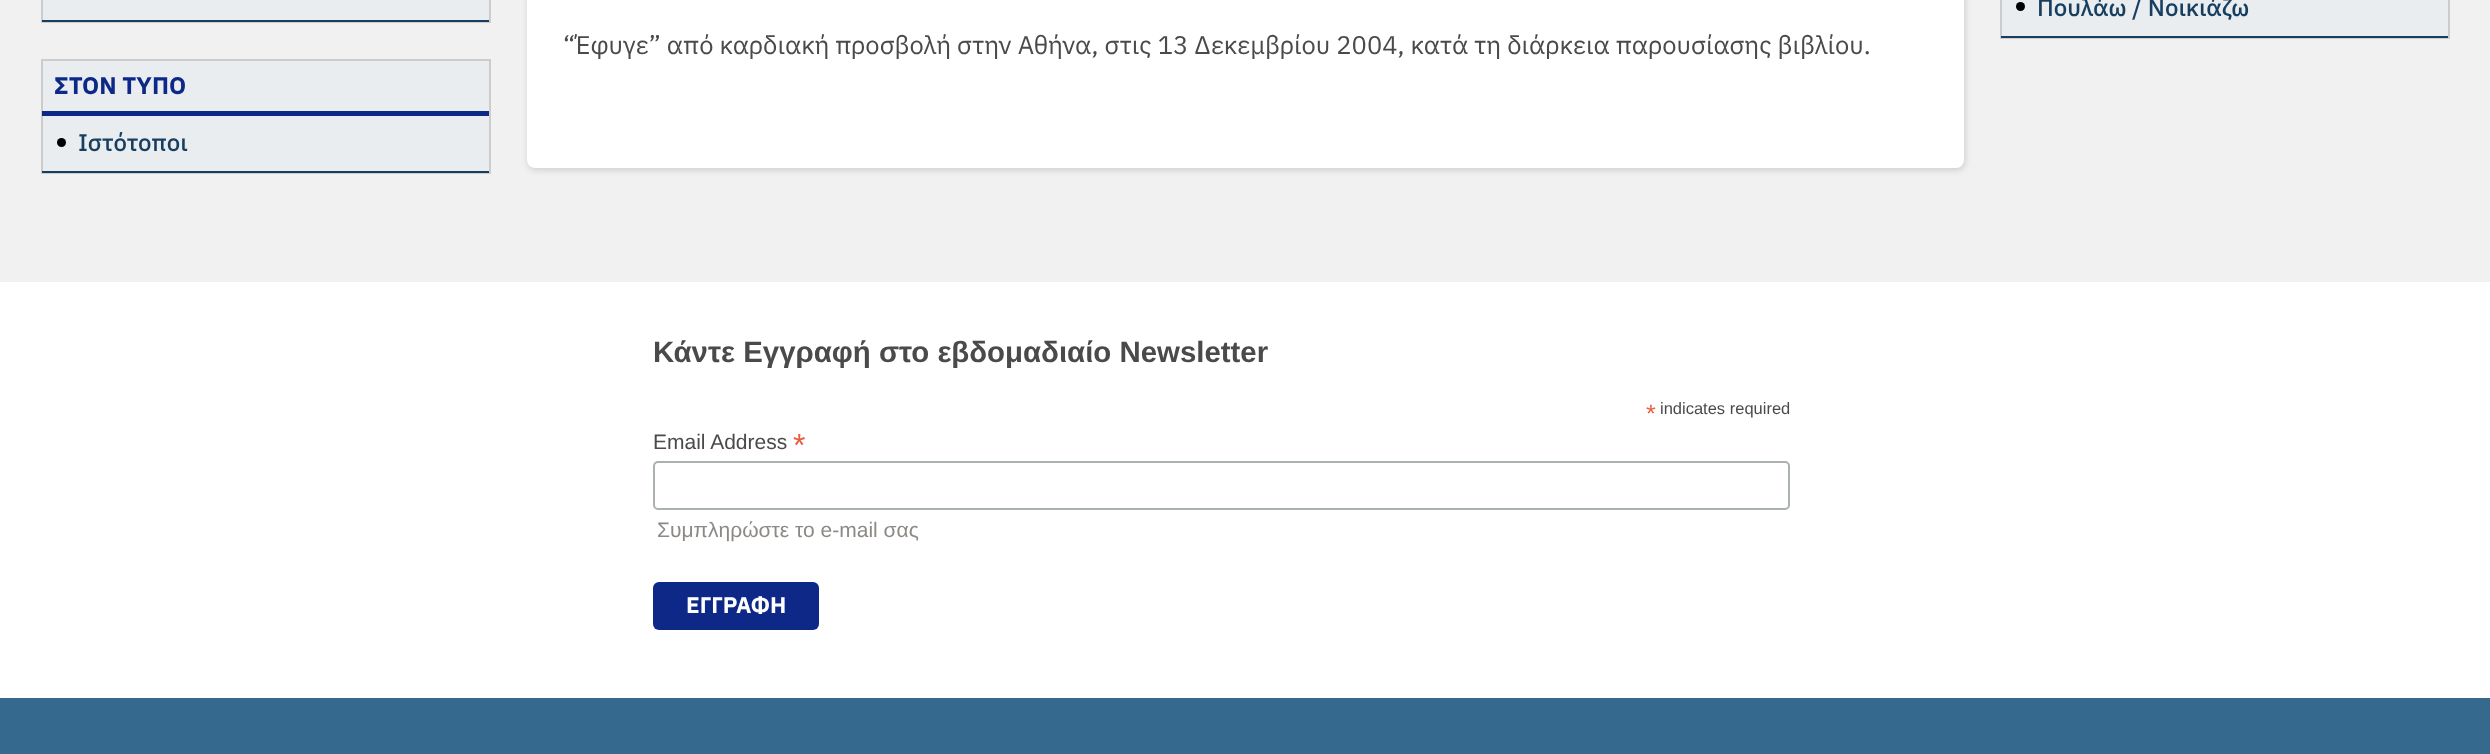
<svg xmlns="http://www.w3.org/2000/svg" width="2490" height="754" viewBox="0 0 2490 754">
  <style>
    .t1 { font: 500 24px IBM Plex Sans; fill: #173e5f; }
    .t2 { font: 25.5px IBM Plex Sans; fill: #4a4a4a; }
    .t3 { font: bold 24px IBM Plex Sans; fill: #0d2887; }
    .t4 { font: bold 29.4px Liberation Sans; fill: #4a4a4a; }
    .t5 { font: 25px Liberation Sans; fill: #e85c41; }
    .t6 { font: 16.5px Liberation Sans; fill: #4a4a4a; }
    .t7 { font: 21px Liberation Sans; fill: #4a4a4a; }
    .t8 { font: 32px Liberation Sans; fill: #e85c41; }
    .t9 { font: 21px Liberation Sans; fill: #8d8985; }
    .t10 { font: bold 22.5px IBM Plex Sans; fill: #fff; }
  </style>
  <rect width="100%" height="100%" fill="#f1f1f1"/>
  <rect x="2002" y="0" width="446" height="36" fill="#e9edf0"/>
  <rect x="2001" y="-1" width="448" height="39" fill="none" stroke="#ccc" stroke-width="2"/>
  <rect x="2001" y="36" width="447" height="2" fill="#173e5f"/>
  <circle cx="2020.5" cy="6.5" r="4.5" fill="#000"/>
  <text x="2037" y="16" class="t1">Πουλάω / Νοικιάζω</text>
  <rect x="528" y="-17" width="1437" height="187" rx="8" fill="#ccc" filter="blur(3px)"/>
  <rect x="527" y="-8" width="1437" height="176" rx="8" fill="#fff"/>
  <text x="563" y="54" class="t2">“Έφυγε” από καρδιακή προσβολή στην Αθήνα, στις 13 Δεκεμβρίου 2004, κατά τη διάρκεια παρουσίασης βιβλίου.</text>
  <rect x="43" y="0" width="446" height="20" fill="#e9edf0"/>
  <rect x="42" y="-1" width="448" height="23" fill="none" stroke="#ccc" stroke-width="2"/>
  <rect x="42" y="20" width="447" height="2" fill="#173e5f"/>
  <rect x="43" y="61" width="446" height="110" fill="#e9edf0"/>
  <rect x="42" y="60" width="448" height="113" fill="none" stroke="#ccc" stroke-width="2"/>
  <rect x="42" y="111" width="447" height="5" fill="#0d2887"/>
  <text x="54" y="94" class="t3">ΣΤΟΝ ΤΥΠΟ</text>
  <rect x="42" y="171" width="447" height="2" fill="#173e5f"/>
  <circle cx="61.5" cy="142.5" r="4.5" fill="#000"/>
  <text x="78" y="151" class="t1">Ιστότοποι</text>
  <rect x="0" y="282" width="2490" height="416" fill="#fff"/>
  <text x="653" y="362" class="t4">Κάντε Εγγραφή στο εβδομαδιαίο Newsletter</text>
  <text x="1646" y="422" class="t5">*</text>
  <text x="1660" y="414" class="t6">indicates required</text>
  <text x="653" y="449" class="t7">Email Address</text>
  <text x="793" y="456" class="t8">*</text>
  <rect x="654" y="462" width="1135" height="47" rx="4" fill="none" stroke="#abb0b2" stroke-width="2"/>
  <text x="657" y="537" class="t9">Συμπληρώστε το e-mail σας</text>
  <rect x="653" y="582" width="166" height="48" rx="6" fill="#0d2887"/>
  <text x="686" y="613" class="t10">ΕΓΓΡΑΦΗ</text>
  <rect x="0" y="698" width="2490" height="56" fill="#36698e"/>
</svg>
